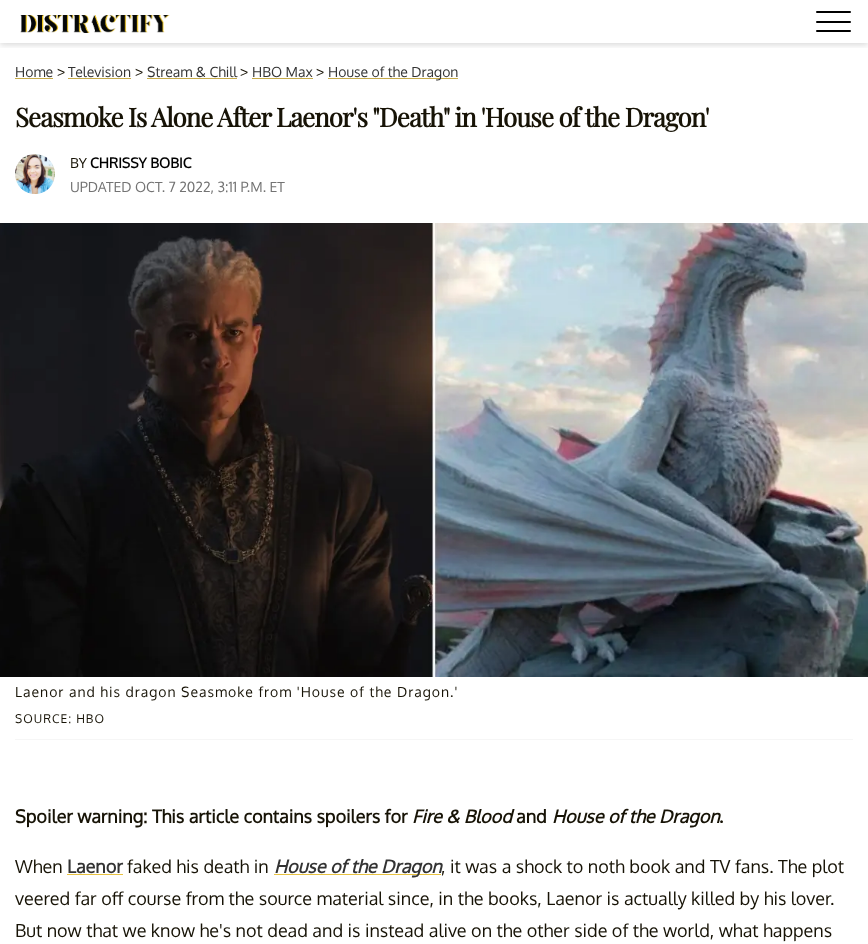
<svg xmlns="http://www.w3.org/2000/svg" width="868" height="944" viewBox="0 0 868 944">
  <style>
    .t1 { font: 14px Oxygen; fill: #333; }
    .t2 { font: 14px Liberation Sans; fill: #171306; }
    .t3 { font: bold 26px Playfair Display; letter-spacing: -1px; fill: #171306; }
    .t4 { font: 14px Oxygen; fill: #171306; }
    .t5 { font: bold 14px Oxygen; fill: #000; }
    .t6 { font: 14px Oxygen; fill: #737373; }
    .t7 { font: 14px Oxygen; letter-spacing: 1px; fill: #171306; }
    .t8 { font: 12px Oxygen; letter-spacing: 1px; fill: #171306; }
    .t9 { font: bold 18px Oxygen; fill: #171306; }
    .t10 { font: italic bold 18px Oxygen; fill: #171306; }
    .t11 { font: 18px Oxygen; fill: #171306; }
    .t12 { font: bold 18px Oxygen; fill: #333; }
    .t13 { font: italic bold 18px Oxygen; fill: #333; }
  </style>
  <defs>
    <clipPath id="clip1"><rect x="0" y="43" width="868" height="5"/></clipPath>
  </defs>
  <rect width="100%" height="100%" fill="#fff"/>
  <g clip-path="url(#clip1)">
    <rect x="0" y="2" width="868" height="43" fill="#00000026" filter="blur(3px)"/>
  </g>
  <image x="20" y="15" width="150" height="18" href="images/1.png"/>
  <rect x="816" y="11" width="35" height="2" rx="1" fill="#000"/>
  <rect x="816" y="21" width="35" height="2" rx="1" fill="#000"/>
  <rect x="816" y="30" width="35" height="2" rx="1" fill="#000"/>
  <text x="15" y="77" class="t1">Home</text>
  <rect x="15" y="78" width="38" height="1" fill="#c7ab4a"/>
  <text x="57" y="77" class="t2">&gt;</text>
  <text x="68" y="77" class="t1">Television</text>
  <rect x="68" y="78" width="63" height="1" fill="#c7ab4a"/>
  <text x="135" y="77" class="t2">&gt;</text>
  <text x="147" y="77" class="t1">Stream &amp; Chill</text>
  <rect x="147" y="78" width="90" height="1" fill="#c7ab4a"/>
  <text x="240" y="77" class="t2">&gt;</text>
  <text x="252" y="77" class="t1">HBO Max</text>
  <rect x="252" y="78" width="61" height="1" fill="#c7ab4a"/>
  <text x="316" y="77" class="t2">&gt;</text>
  <rect x="328" y="78" width="130" height="1" fill="#c7ab4a"/>
  <text x="328" y="77" class="t1">House of the Dragon</text>
  <text x="15" y="127" class="t3">Seasmoke Is Alone After Laenor's "Death" in 'House of the Dragon'</text>
  <image x="15" y="154" width="40" height="40" href="images/2.png"/>
  <text x="70" y="168" class="t4">BY</text>
  <text x="90" y="168" class="t5">CHRISSY BOBIC</text>
  <text x="70" y="192" class="t6">UPDATED OCT. 7 2022, 3:11 P.M. ET</text>
  <image x="0" y="223" width="868" height="454" href="images/3.png"/>
  <rect x="15" y="739" width="838" height="1" fill="#f6f6f6"/>
  <text x="15" y="697" class="t7">Laenor and his dragon Seasmoke from 'House of the Dragon.'</text>
  <text x="15" y="723" class="t8">SOURCE: HBO</text>
  <text x="15" y="823" class="t9">Spoiler warning: This article contains spoilers for</text>
  <text x="412" y="823" class="t10">Fire &amp; Blood</text>
  <text x="516" y="823" class="t9">and</text>
  <text x="552" y="823" class="t10">House of the Dragon</text>
  <text x="719" y="823" class="t9">.</text>
  <text x="15" y="873" class="t11">When</text>
  <text x="67" y="873" class="t12">Laenor</text>
  <rect x="67" y="874" width="56" height="1" fill="#e8c241"/>
  <text x="127" y="873" class="t11">faked his death in</text>
  <rect x="274" y="874" width="167" height="1" fill="#e8c241"/>
  <text x="274" y="873" class="t13">House of the Dragon</text>
  <text x="441" y="873" class="t11">, it was a shock to noth book and TV fans. The plot</text>
  <text x="15" y="905" class="t11">veered far off course from the source material since, in the books, Laenor is actually killed by his lover.</text>
  <text x="15" y="937" class="t11">But now that we know he's not dead and is instead alive on the other side of the world, what happens</text>
</svg>
